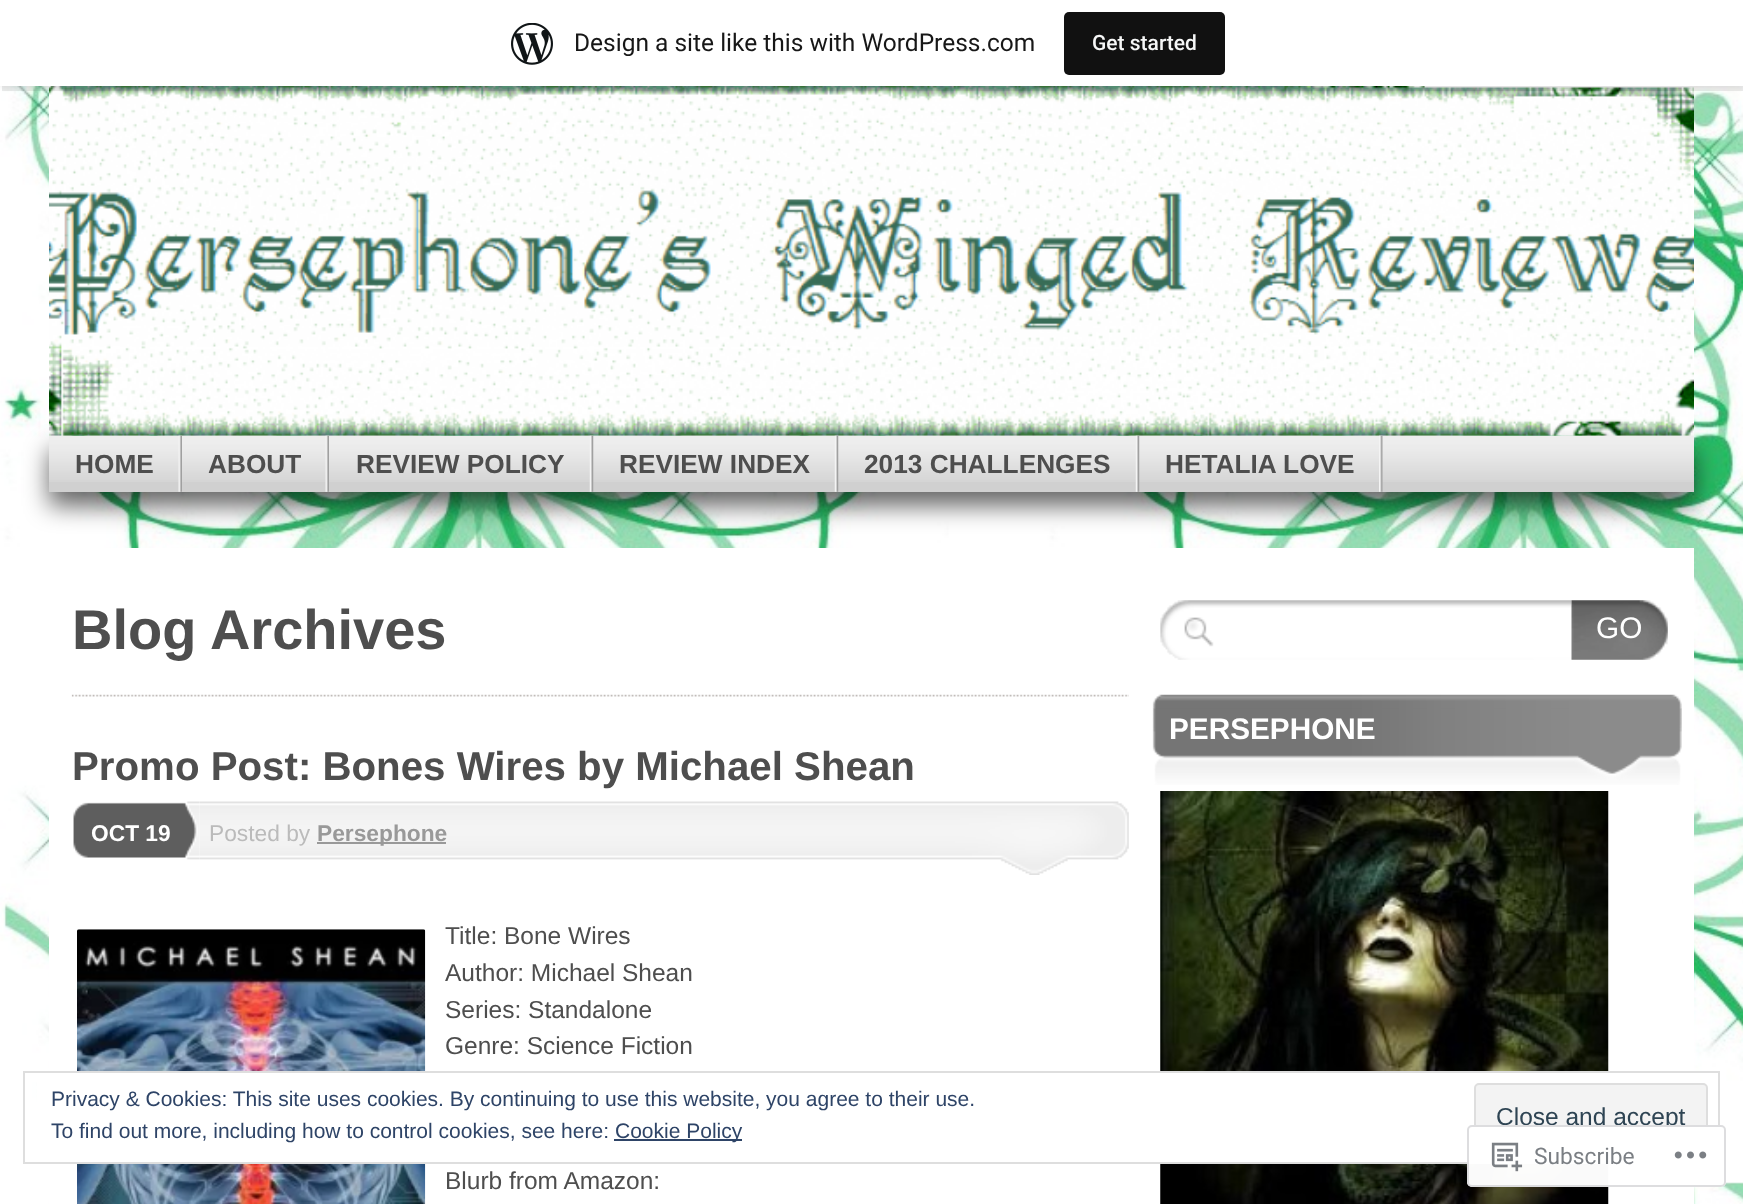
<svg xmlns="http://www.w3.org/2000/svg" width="1743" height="1204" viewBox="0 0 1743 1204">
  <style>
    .t1 { font: 24.5px Roboto; fill: #171717; }
    .t2 { font: 500 21px Roboto; fill: #f6f7f7; }
    .t3 { font: bold 26.25px Liberation Sans; fill: #4e4e4e; }
    .t4 { font: bold 56px Liberation Sans; fill: #4e4e4e; }
    .t5 { font: bold 40.25px Liberation Sans; fill: #4e4e4e; }
    .t6 { font: bold 22.75px Liberation Sans; fill: #fff; }
    .t7 { font: 22.75px Liberation Sans; fill: #bbb; }
    .t8 { font: bold 22.75px Liberation Sans; fill: #999; }
    .t9 { font: 24.5px Liberation Sans; fill: #4e4e4e; }
    .t10 { font: 29.75px Liberation Sans; fill: #fff; }
    .t11 { font: bold 29.75px Liberation Sans; fill: #fff; }
    .t12 { font: 21px Liberation Sans; fill: #2e4467; }
    .t13 { font: 24.5px Liberation Sans; fill: #2e4453; }
    .t14 { font: 22.75px Roboto; fill: #7b7f84; }
  </style>
  <rect width="100%" height="100%" fill="#fff"/>
  <image x="0" y="86" width="1743" height="1118" href="images/1.png"/>
  <image x="49" y="86" width="1645" height="350" href="images/3.png"/>
  <rect x="0" y="2" width="1743" height="86" fill="#0000000d" filter="blur(2px)"/>
  <path d="M2 86V91H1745V5H1743V86Z" fill="#00000014"/>
  <rect x="0" y="0" width="1743" height="86" fill="#fff"/>
  <image x="511" y="23" width="42" height="42" href="images/2.png"/>
  <text x="574" y="51" class="t1">Design a site like this with WordPress.com</text>
  <rect x="1064" y="12" width="161" height="63" rx="5" fill="#111"/>
  <text x="1092" y="50" class="t2">Get started</text>
  <rect x="49" y="450" width="1645" height="56" fill="#00000099" filter="blur(12px)"/>
  <rect x="49" y="482" width="1645" height="10" fill="#d0d0d0"/>
  <image x="49" y="435" width="1645" height="47" href="images/4.png"/>
  <image x="178" y="435" width="4" height="57" href="images/5.png"/>
  <text x="75" y="473" class="t3">HOME</text>
  <image x="325" y="435" width="4" height="57" href="images/6.png"/>
  <text x="208" y="473" class="t3">ABOUT</text>
  <image x="589" y="435" width="5" height="57" href="images/7.png"/>
  <text x="356" y="473" class="t3">REVIEW POLICY</text>
  <image x="834" y="435" width="5" height="57" href="images/8.png"/>
  <text x="619" y="473" class="t3">REVIEW INDEX</text>
  <image x="1135" y="435" width="5" height="57" href="images/9.png"/>
  <text x="864" y="473" class="t3">2013 CHALLENGES</text>
  <image x="1379" y="435" width="4" height="57" href="images/10.png"/>
  <text x="1165" y="473" class="t3">HETALIA LOVE</text>
  <rect x="49" y="548" width="1645" height="656" fill="#fff"/>
  <image x="71" y="694" width="1058" height="3" href="images/11.png"/>
  <text x="72" y="649" class="t4">Blog Archives</text>
  <text x="72" y="780" class="t5">Promo Post: Bones Wires by Michael Shean</text>
  <image x="73" y="802" width="19" height="56" href="images/12.png"/>
  <image x="92" y="801" width="108" height="59" href="images/13.png"/>
  <text x="91" y="841" class="t6">OCT 19</text>
  <image x="199" y="801" width="930" height="74" href="images/14.png"/>
  <text x="209" y="841" class="t7">Posted by</text>
  <rect x="317" y="842" width="129" height="2" fill="#999"/>
  <text x="317" y="841" class="t8">Persephone</text>
  <image x="77" y="929" width="349" height="275" href="images/15.png"/>
  <text x="445" y="944" class="t9">Title: Bone Wires</text>
  <text x="445" y="981" class="t9">Author: Michael Shean</text>
  <text x="445" y="1018" class="t9">Series: Standalone</text>
  <text x="445" y="1054" class="t9">Genre: Science Fiction</text>
  <text x="445" y="1189" class="t9">Blurb from Amazon:</text>
  <image x="1160" y="600" width="412" height="60" href="images/16.png"/>
  <image x="1571" y="600" width="97" height="60" href="images/17.png"/>
  <text x="1596" y="638" class="t10">GO</text>
  <image x="1152" y="694" width="530" height="15" href="images/18.png"/>
  <image x="1152" y="708" width="530" height="77" href="images/19.png"/>
  <text x="1169" y="739" class="t11">PERSEPHONE</text>
  <image x="1160" y="791" width="449" height="413" href="images/20.png"/>
  <rect x="37" y="1073" width="1663" height="89" fill="#fff"/>
  <rect x="24" y="1072" width="1695" height="91" fill="none" stroke="#dedede" stroke-width="2"/>
  <text x="51" y="1106" class="t12">Privacy &amp; Cookies: This site uses cookies. By continuing to use this website, you agree to their use.</text>
  <text x="51" y="1138" class="t12">To find out more, including how to control cookies, see here:</text>
  <rect x="614" y="1139" width="128" height="2" fill="#2e4467"/>
  <text x="615" y="1138" class="t12">Cookie Policy</text>
  <rect x="1475" y="1084" width="232" height="67" rx="4" fill="#f3f3f3" stroke="#dedede" stroke-width="2"/>
  <text x="1496" y="1125" class="t13">Close and accept</text>
  <rect x="1467" y="1125" width="259" height="62" rx="5" fill="#fffffffa"/>
  <rect x="1468" y="1126" width="257" height="60" rx="4" fill="none" stroke="#dcdcdefa" stroke-width="2"/>
  <image x="1491" y="1142" width="32" height="30" href="images/21.png"/>
  <text x="1534" y="1164" class="t14">Subscribe</text>
  <image x="1674" y="1151" width="33" height="8" href="images/22.png"/>
</svg>
